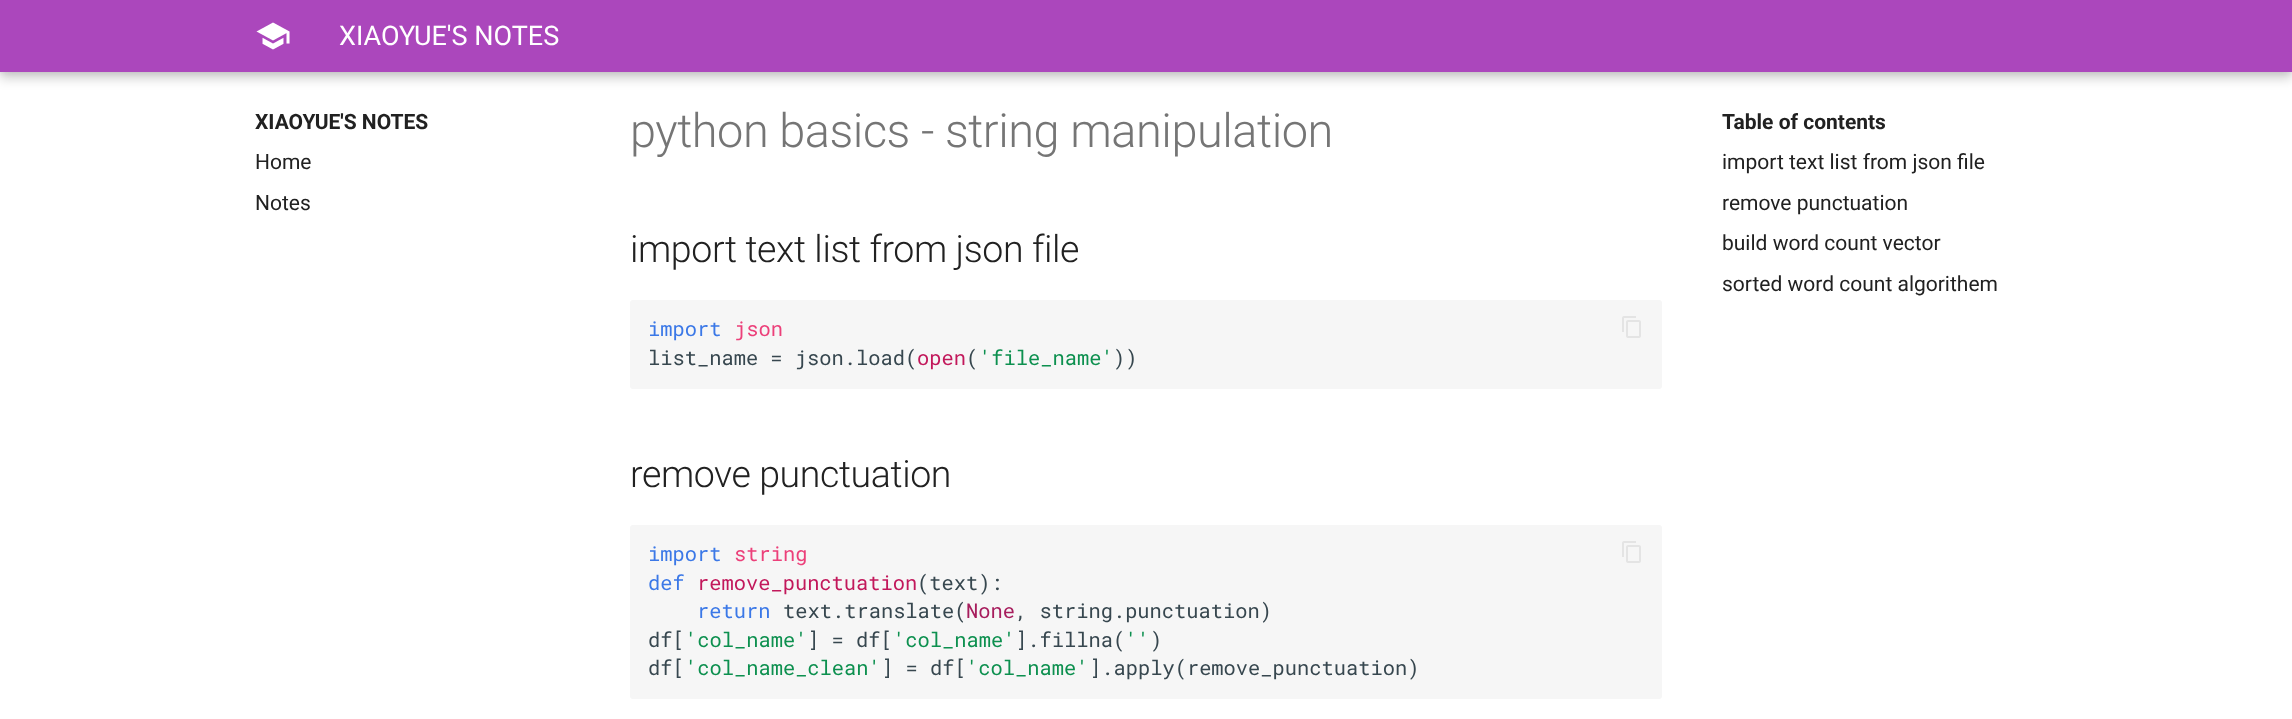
<svg xmlns="http://www.w3.org/2000/svg" width="2292" height="719" viewBox="0 0 2292 719">
  <style>
    .t1 { font: 27px Roboto; fill: #fff; }
    .t2 { font: bold 21px Roboto; fill: #212121; }
    .t3 { font: 21px Roboto; fill: #212121; }
    .t4 { font: 300 46.9px Roboto; letter-spacing: -0.45px; fill: #757575; }
    .t5 { font: 300 37.5px Roboto; letter-spacing: -0.4px; fill: #212121; }
    .t6 { font: 20.4px Roboto Mono; fill: #3b78e7; }
    .t7 { font: 20.4px Roboto Mono; fill: #ec407a; }
    .t8 { font: 20.4px Roboto Mono; fill: #37474f; }
    .t9 { font: 20.4px Roboto Mono; fill: #c2185b; }
    .t10 { font: 20.4px Roboto Mono; fill: #0d904f; }
    .t11 { font: 20.4px Roboto Mono; fill: #a71d5d; }
  </style>
  <rect width="100%" height="100%" fill="#fff"/>
  <rect x="0" y="6" width="2292" height="72" fill="#00000033" filter="blur(6px)"/>
  <rect x="0" y="0" width="2292" height="72" fill="#0000001a" filter="blur(3px)"/>
  <rect x="0" y="0" width="2292" height="72" fill="#ab47bc"/>
  <image x="256" y="22" width="34" height="28" href="images/1.png"/>
  <text x="339" y="45" class="t1">XIAOYUE'S NOTES</text>
  <text x="255" y="129" class="t2">XIAOYUE'S NOTES</text>
  <text x="255" y="169" class="t3">Home</text>
  <text x="255" y="210" class="t3">Notes</text>
  <text x="630" y="147" class="t4">python basics - string manipulation</text>
  <text x="630" y="262" class="t5">import text list from json file</text>
  <rect x="630" y="300" width="1032" height="89" rx="3" fill="#f6f6f6"/>
  <text x="648" y="336" class="t6">import</text>
  <text x="734" y="336" class="t7">json</text>
  <text x="648" y="365" class="t8">list_name = json.load(</text>
  <text x="917" y="365" class="t9">open</text>
  <text x="966" y="365" class="t8">(</text>
  <text x="979" y="365" class="t10">'file_name'</text>
  <text x="1113" y="365" class="t8">))</text>
  <image x="1622" y="316" width="19" height="22" href="images/2.png"/>
  <text x="630" y="487" class="t5">remove punctuation</text>
  <rect x="630" y="525" width="1032" height="174" rx="3" fill="#f6f6f6"/>
  <text x="648" y="561" class="t6">import</text>
  <text x="734" y="561" class="t7">string</text>
  <text x="648" y="590" class="t6">def</text>
  <text x="697" y="590" class="t9">remove_punctuation</text>
  <text x="917" y="590" class="t8">(text):</text>
  <text x="697" y="618" class="t6">return</text>
  <text x="783" y="618" class="t8">text.translate(</text>
  <text x="966" y="618" class="t11">None</text>
  <text x="1015" y="618" class="t8">, string.punctuation)</text>
  <text x="648" y="647" class="t8">df[</text>
  <text x="685" y="647" class="t10">'col_name'</text>
  <text x="807" y="647" class="t8">] = df[</text>
  <text x="893" y="647" class="t10">'col_name'</text>
  <text x="1015" y="647" class="t8">].fillna(</text>
  <text x="1125" y="647" class="t10">''</text>
  <text x="1150" y="647" class="t8">)</text>
  <text x="648" y="675" class="t8">df[</text>
  <text x="685" y="675" class="t10">'col_name_clean'</text>
  <text x="881" y="675" class="t8">] = df[</text>
  <text x="966" y="675" class="t10">'col_name'</text>
  <text x="1089" y="675" class="t8">].apply(remove_punctuation)</text>
  <image x="1622" y="541" width="19" height="22" href="images/2.png"/>
  <text x="1722" y="129" class="t2">Table of contents</text>
  <text x="1722" y="169" class="t3">import text list from json file</text>
  <text x="1722" y="210" class="t3">remove punctuation</text>
  <text x="1722" y="250" class="t3">build word count vector</text>
  <text x="1722" y="291" class="t3">sorted word count algorithem</text>
</svg>
